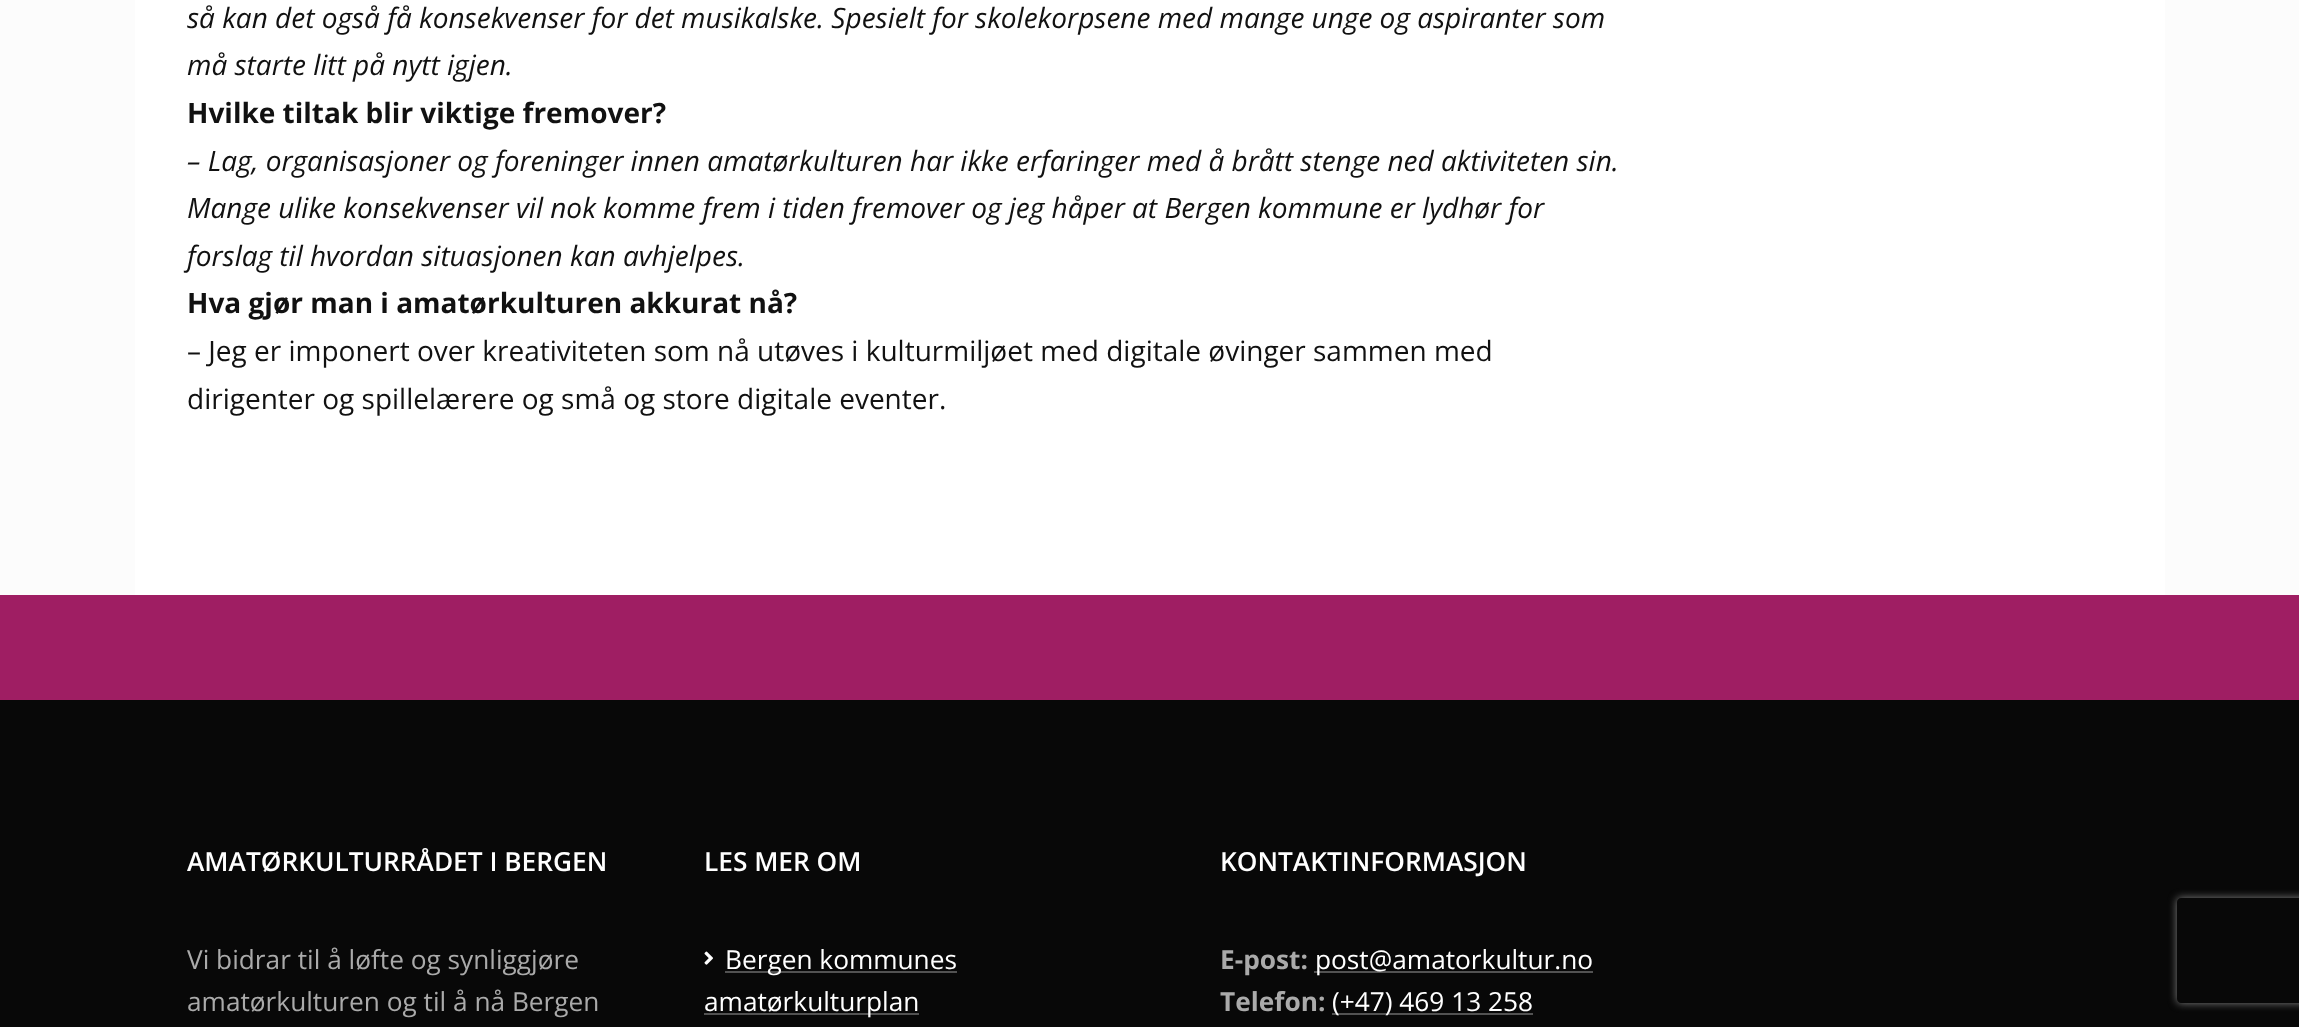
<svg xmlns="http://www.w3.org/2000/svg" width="2299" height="1027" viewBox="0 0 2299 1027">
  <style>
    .t1 { font: italic 28px Open Sans; fill: #111; }
    .t2 { font: bold 28px Open Sans; fill: #111; }
    .t3 { font: 28px Open Sans; fill: #111; }
    .t4 { font: 600 26.25px Open Sans; fill: #fff; }
    .t5 { font: 26.25px Open Sans; fill: #aaa; }
    .t6 { font: 26.25px Open Sans; fill: #fff; }
    .t7 { font: bold 26.25px Open Sans; fill: #aaa; }
  </style>
  <defs>
    <clipPath id="clip1"><path d="M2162 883H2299V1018H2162ZM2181 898H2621C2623 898 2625 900 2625 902V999C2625 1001 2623 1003 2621 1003H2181C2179 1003 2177 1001 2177 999V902C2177 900 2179 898 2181 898Z" clip-rule="evenodd"/></clipPath>
  </defs>
  <rect width="100%" height="100%" fill="#fcfcfc"/>
  <rect x="135" y="0" width="2030" height="595" fill="#fff"/>
  <text x="187" y="28" class="t1">så kan det også få konsekvenser for det musikalske. Spesielt for skolekorpsene med mange unge og aspiranter som</text>
  <text x="187" y="75" class="t1">må starte litt på nytt igjen.</text>
  <text x="187" y="123" class="t2">Hvilke tiltak blir viktige fremover?</text>
  <text x="187" y="171" class="t1">– Lag, organisasjoner og foreninger innen amatørkulturen har ikke erfaringer med å brått stenge ned aktiviteten sin.</text>
  <text x="187" y="218" class="t1">Mange ulike konsekvenser vil nok komme frem i tiden fremover og jeg håper at Bergen kommune er lydhør for</text>
  <text x="187" y="266" class="t1">forslag til hvordan situasjonen kan avhjelpes.</text>
  <text x="187" y="313" class="t2">Hva gjør man i amatørkulturen akkurat nå?</text>
  <text x="187" y="361" class="t3">– Jeg er imponert over kreativiteten som nå utøves i kulturmiljøet med digitale øvinger sammen med</text>
  <text x="187" y="409" class="t3">dirigenter og spillelærere og små og store digitale eventer.</text>
  <rect x="0" y="595" width="2299" height="105" fill="#9f1e63"/>
  <rect x="0" y="700" width="2299" height="327" fill="#080808"/>
  <text x="187" y="871" class="t4">AMATØRKULTURRÅDET I BERGEN</text>
  <text x="187" y="969" class="t5">Vi bidrar til å løfte og synliggjøre</text>
  <text x="187" y="1011" class="t5">amatørkulturen og til å nå Bergen</text>
  <text x="704" y="871" class="t4">LES MER OM</text>
  <image x="704" y="951" width="9" height="14" href="images/1.png"/>
  <rect x="725" y="971" width="232" height="2" fill="#525252"/>
  <text x="725" y="969" class="t6">Bergen kommunes</text>
  <rect x="704" y="1013" width="215" height="2" fill="#525252"/>
  <text x="704" y="1011" class="t6">amatørkulturplan</text>
  <text x="1220" y="871" class="t4">KONTAKTINFORMASJON</text>
  <text x="1220" y="969" class="t7">E-post:</text>
  <rect x="1314" y="971" width="279" height="2" fill="#525252"/>
  <text x="1315" y="969" class="t6">post@amatorkultur.no</text>
  <text x="1220" y="1011" class="t7">Telefon:</text>
  <rect x="1332" y="1013" width="201" height="2" fill="#525252"/>
  <text x="1332" y="1011" class="t6">(+47) 469 13 258</text>
  <g clip-path="url(#clip1)">
    <rect x="2177" y="898" width="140" height="105" rx="4" fill="#808080" filter="blur(4.5px)"/>
  </g>
</svg>
